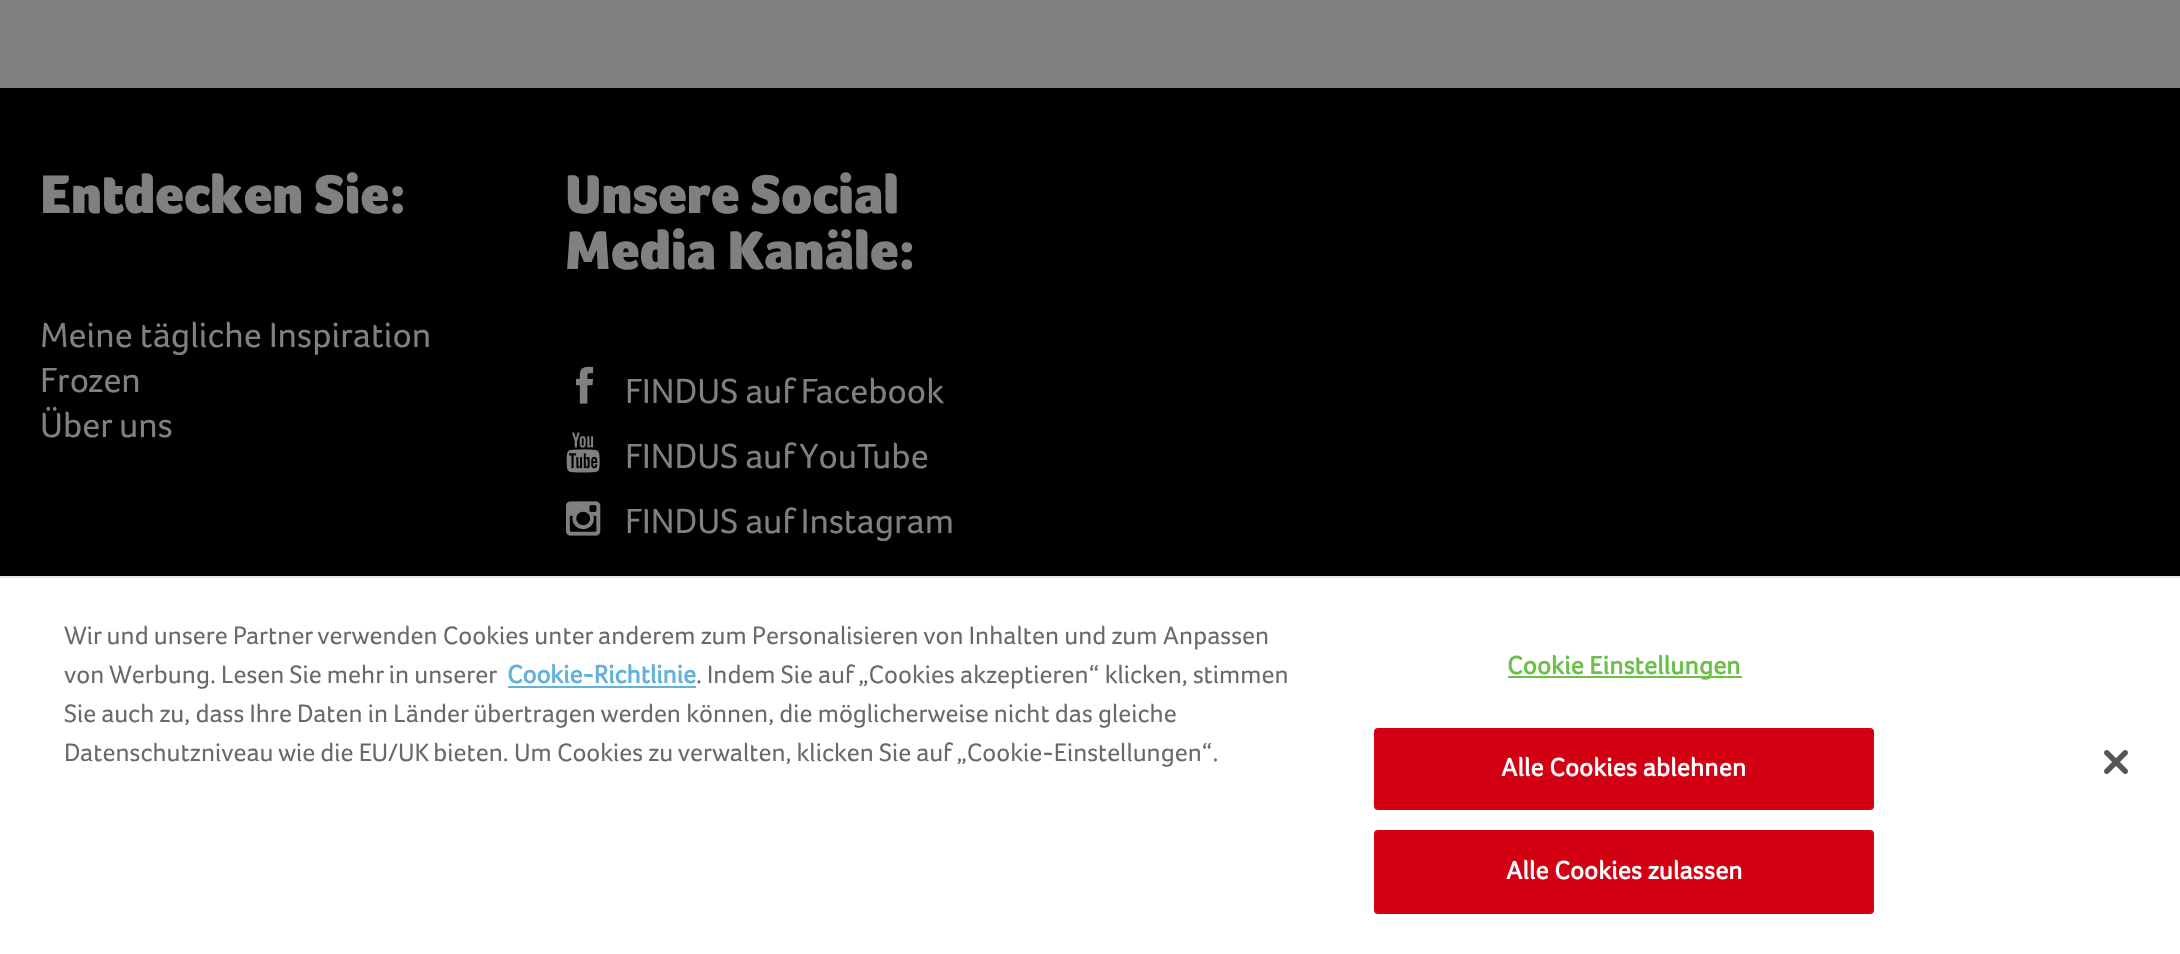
<svg xmlns="http://www.w3.org/2000/svg" width="2180" height="954" viewBox="0 0 2180 954">
  <style>
    .t1 { font: 900 56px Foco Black; fill: #808080; }
    .t2 { font: 36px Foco; fill: #808080; }
    .t3 { font: 26px Foco; fill: #696969; }
    .t4 { font: bold 26px Foco; fill: #64b2dc; }
    .t5 { font: bold 26px Foco; letter-spacing: 0.25px; fill: #6cc04a; }
    .t6 { font: bold 26px Foco; letter-spacing: 0.25px; fill: #fff; }
  </style>
  <rect width="100%" height="100%" fill="#808080"/>
  <rect x="0" y="88" width="2180" height="488" fill="#000"/>
  <text x="40" y="213" class="t1">Entdecken Sie:</text>
  <text x="40" y="347" class="t2">Meine tägliche Inspiration</text>
  <text x="40" y="392" class="t2">Frozen</text>
  <text x="40" y="437" class="t2">Über uns</text>
  <text x="565" y="213" class="t1">Unsere Social</text>
  <text x="565" y="269" class="t1">Media Kanäle:</text>
  <image x="576" y="366" width="18" height="38" href="images/1.png"/>
  <text x="625" y="403" class="t2">FINDUS auf Facebook</text>
  <image x="566" y="432" width="34" height="41" href="images/2.png"/>
  <text x="625" y="468" class="t2">FINDUS auf YouTube</text>
  <image x="566" y="501" width="35" height="35" href="images/3.png"/>
  <text x="625" y="533" class="t2">FINDUS auf Instagram</text>
  <rect x="0" y="578" width="2180" height="376" fill="#fff"/>
  <rect x="0" y="576" width="2180" height="2" fill="#e3e3e3"/>
  <text x="64" y="644" class="t3">Wir und unsere Partner verwenden Cookies unter anderem zum Personalisieren von Inhalten und zum Anpassen</text>
  <text x="64" y="683" class="t3">von Werbung. Lesen Sie mehr in unserer</text>
  <text x="507" y="683" class="t4">Cookie-Richtlinie</text>
  <rect x="508" y="686" width="188" height="2" fill="#64b2dc"/>
  <text x="696" y="683" class="t3">. Indem Sie auf „Cookies akzeptieren“ klicken, stimmen</text>
  <text x="64" y="722" class="t3">Sie auch zu, dass Ihre Daten in Länder übertragen werden können, die möglicherweise nicht das gleiche</text>
  <text x="64" y="761" class="t3">Datenschutzniveau wie die EU/UK bieten. Um Cookies zu verwalten, klicken Sie auf „Cookie-Einstellungen“.</text>
  <rect x="1508" y="676" width="234" height="2" fill="#6cc04a"/>
  <text x="1507" y="674" class="t5">Cookie Einstellungen</text>
  <rect x="1375" y="729" width="498" height="80" rx="3" fill="#d30013" stroke="#d30013" stroke-width="2"/>
  <text x="1501" y="776" class="t6">Alle Cookies ablehnen</text>
  <rect x="1375" y="831" width="498" height="82" rx="3" fill="#d30013" stroke="#d30013" stroke-width="2"/>
  <text x="1506" y="879" class="t6">Alle Cookies zulassen</text>
  <image x="2104" y="750" width="24" height="24" href="images/4.png"/>
</svg>
